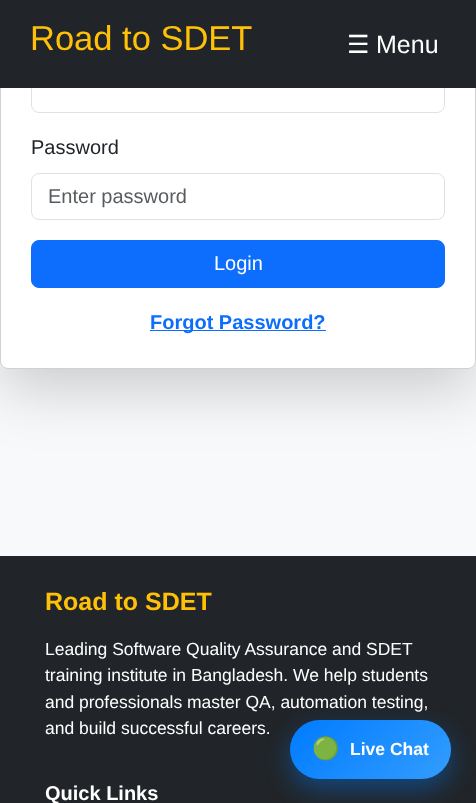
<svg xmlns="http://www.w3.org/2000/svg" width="476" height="803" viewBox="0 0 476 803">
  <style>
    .t1 { font: 34.5px Liberation Sans; fill: #ffc107; }
    .t2 { font: 25px DejaVu Sans; fill: #fff; }
    .t3 { font: 25px Liberation Sans; fill: #fff; }
    .t4 { font: 20px Liberation Sans; fill: #212529; }
    .t5 { font: 20px Liberation Sans; fill: #595c5f; }
    .t6 { font: 20px Liberation Sans; fill: #fff; }
    .t7 { font: bold 20px Liberation Sans; fill: #0d6efd; }
    .t8 { font: bold 25px Liberation Sans; fill: #ffc107; }
    .t9 { font: 17.5px Liberation Sans; fill: #fff; }
    .t10 { font: bold 20px Liberation Sans; fill: #fff; }
    .t11 { font: bold 22px Noto Color Emoji; fill: #fff; }
    .t12 { font: bold 17.5px Liberation Sans; fill: #fff; }
  </style>
  <defs>
    <linearGradient id="g1" gradientUnits="userSpaceOnUse" x1="316" y1="694" x2="426" y2="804"><stop offset="0" stop-color="#007bff"/><stop offset="1" stop-color="#339dff"/></linearGradient>
  </defs>
  <rect width="100%" height="100%" fill="#f8f9fa"/>
  <rect x="0" y="-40" width="476" height="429" rx="8" fill="#0000002e" filter="blur(30px)"/>
  <rect x="0" y="-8" width="476" height="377" rx="8" fill="#fff"/>
  <rect x="0.5" y="-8.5" width="475" height="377" rx="7.5" fill="none" stroke="#0000002e"/>
  <rect x="31.5" y="65.5" width="413" height="47" rx="7.5" fill="none" stroke="#dee2e6"/>
  <rect x="0" y="0" width="476" height="88" fill="#212529"/>
  <text x="30" y="50" class="t1">Road to SDET</text>
  <text x="347" y="53" class="t2">☰</text>
  <text x="376" y="53" class="t3">Menu</text>
  <text x="31" y="154" class="t4">Password</text>
  <rect x="31.5" y="173.5" width="413" height="46" rx="7.5" fill="none" stroke="#dee2e6"/>
  <text x="48" y="203" class="t5">Enter password</text>
  <rect x="31.5" y="240.5" width="413" height="47" rx="7.5" fill="#0d6efd" stroke="#0d6efd"/>
  <text x="214" y="270" class="t6">Login</text>
  <rect x="150" y="330" width="176" height="1" fill="#0d6efd"/>
  <text x="150" y="329" class="t7">Forgot Password?</text>
  <rect x="0" y="556" width="476" height="247" fill="#212529"/>
  <text x="45" y="610" class="t8">Road to SDET</text>
  <text x="45" y="655" class="t9">Leading Software Quality Assurance and SDET</text>
  <text x="45" y="681" class="t9">training institute in Bangladesh. We help students</text>
  <text x="45" y="708" class="t9">and professionals master QA, automation testing,</text>
  <text x="45" y="734" class="t9">and build successful careers.</text>
  <text x="45" y="800" class="t10">Quick Links</text>
  <rect x="290" y="730" width="161" height="59" rx="29.5" fill="#007bff66" filter="blur(12.5px)"/>
  <rect x="290" y="720" width="161" height="59" rx="29.5" fill="url(#g1)"/>
  <text x="312" y="756" class="t11">🟢</text>
  <text x="350" y="755" class="t12">Live Chat</text>
</svg>
